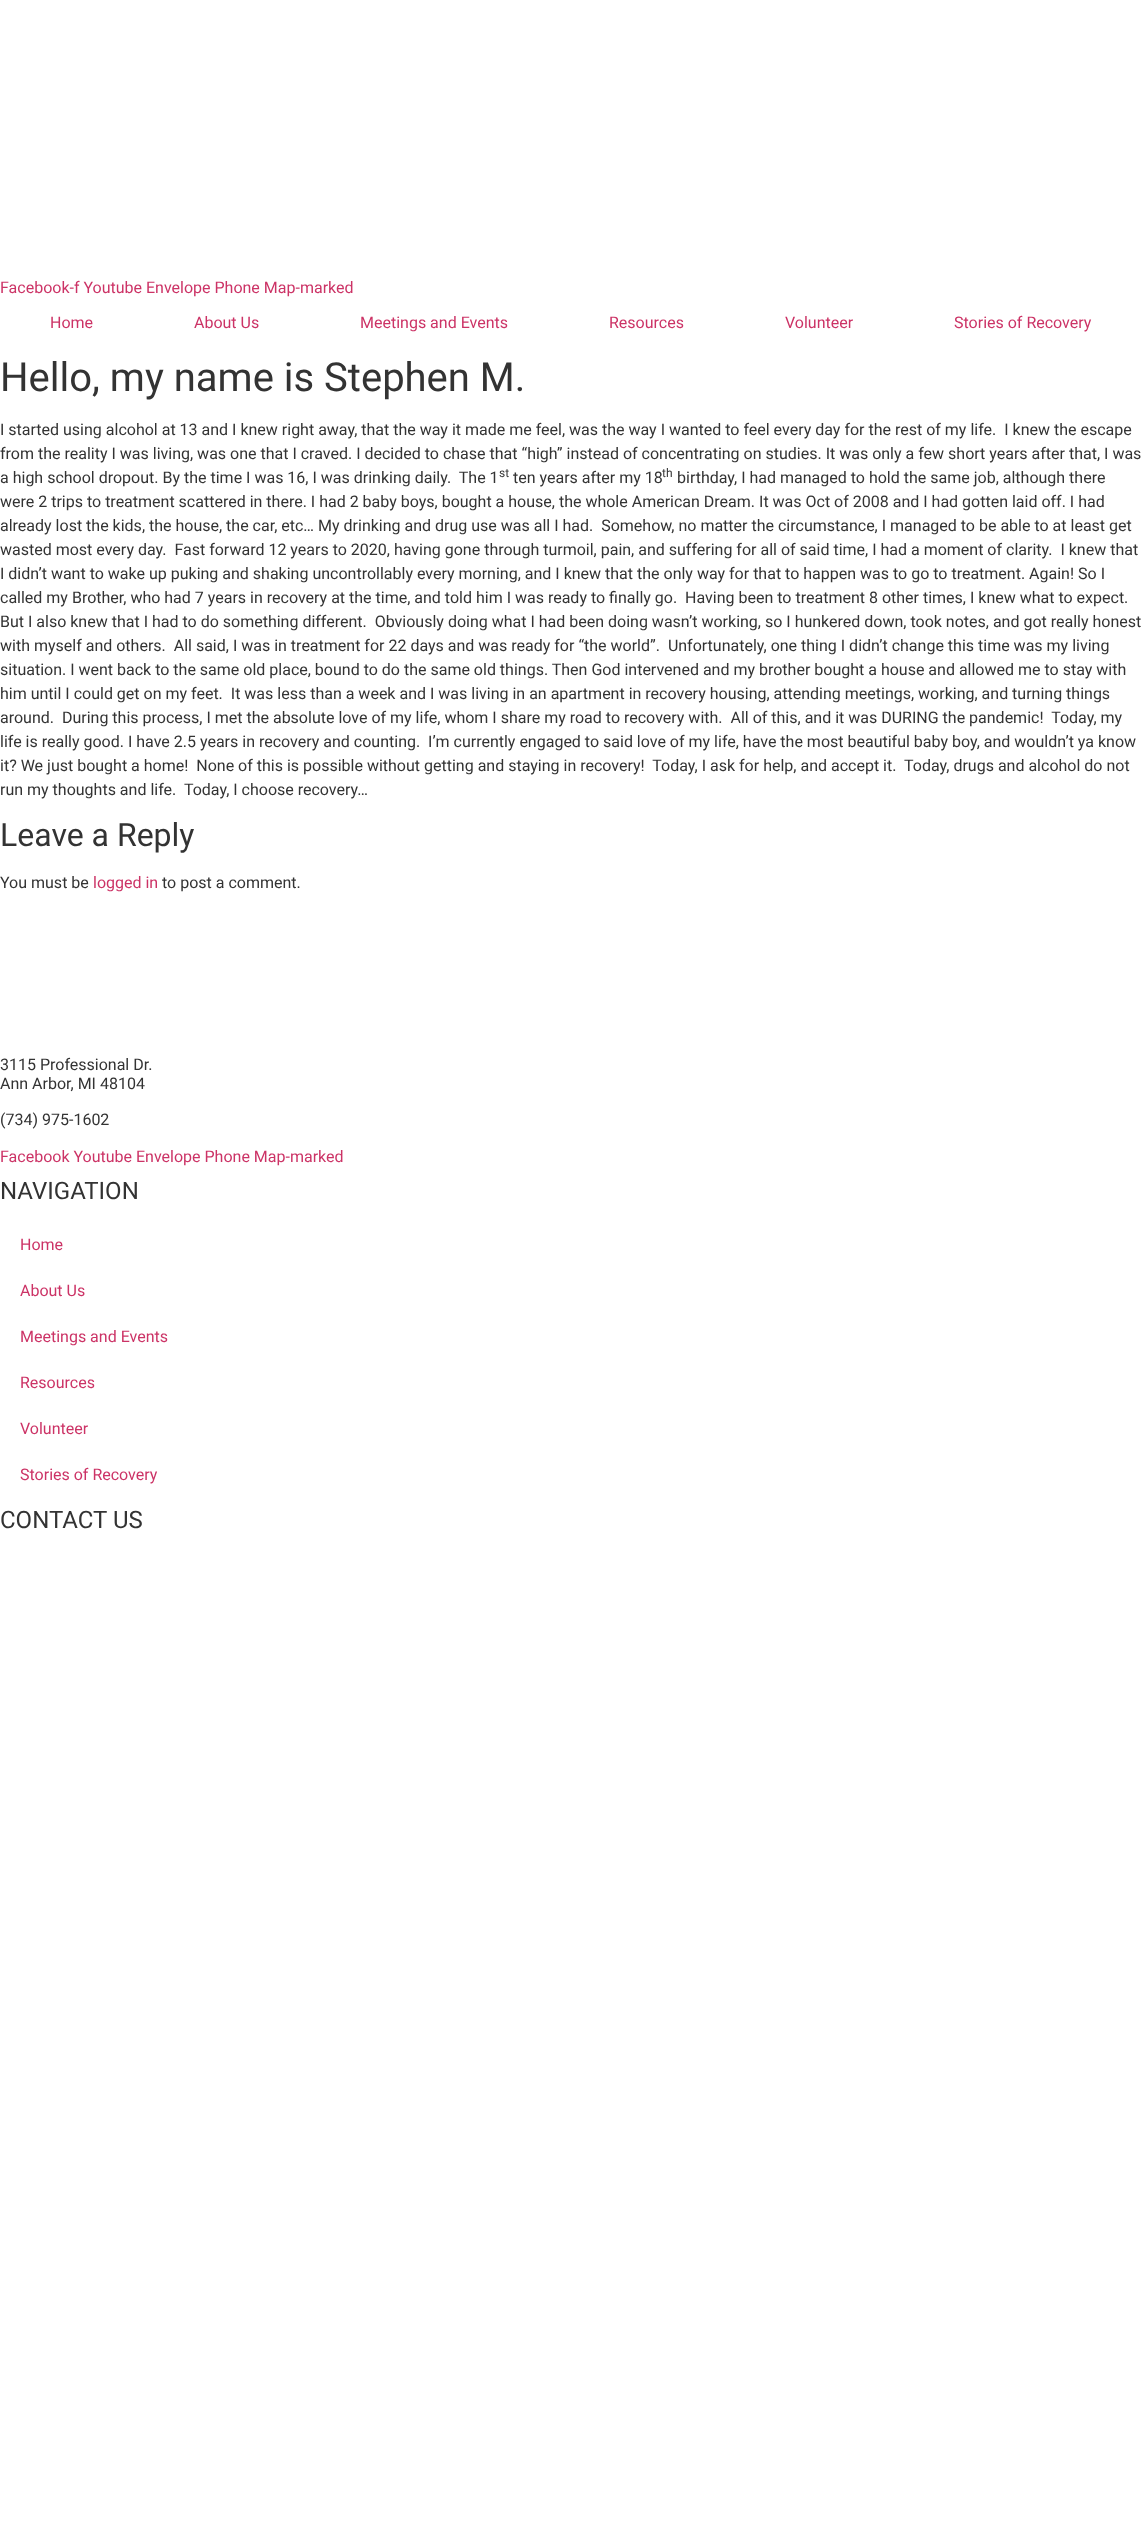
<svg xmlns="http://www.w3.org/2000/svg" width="1142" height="2544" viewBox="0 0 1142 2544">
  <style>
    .t1 { font: 16px Roboto; fill: #c36; }
    .t2 { font: 40px Roboto; fill: #333; }
    .t3 { font: 16px Roboto; fill: #333; }
    .t4 { font: 12px Roboto; fill: #333; }
    .t5 { font: 32px Roboto; fill: #333; }
    .t6 { font: 24px Roboto; fill: #333; }
  </style>
  <rect width="100%" height="100%" fill="#fff"/>
  <text x="0" y="293" class="t1">Facebook-f Youtube Envelope Phone Map-marked</text>
  <text x="50" y="328" class="t1">Home</text>
  <text x="194" y="328" class="t1">About Us</text>
  <text x="360" y="328" class="t1">Meetings and Events</text>
  <text x="609" y="328" class="t1">Resources</text>
  <text x="785" y="328" class="t1">Volunteer</text>
  <text x="954" y="328" class="t1">Stories of Recovery</text>
  <text x="0" y="391" class="t2">Hello, my name is Stephen M.</text>
  <text x="0" y="435" class="t3" xml:space="preserve">I started using alcohol at 13 and I knew right away, that the way it made me feel, was the way I wanted to feel every day for the rest of my life.  I knew the escape</text>
  <text x="0" y="459" class="t3">from the reality I was living, was one that I craved. I decided to chase that “high” instead of concentrating on studies. It was only a few short years after that, I was</text>
  <text x="0" y="483" class="t3" xml:space="preserve">a high school dropout. By the time I was 16, I was drinking daily.  The 1</text>
  <text x="499" y="477" class="t4">st</text>
  <text x="513" y="483" class="t3">ten years after my 18</text>
  <text x="662" y="477" class="t4">th</text>
  <text x="677" y="483" class="t3">birthday, I had managed to hold the same job, although there</text>
  <text x="0" y="507" class="t3">were 2 trips to treatment scattered in there. I had 2 baby boys, bought a house, the whole American Dream. It was Oct of 2008 and I had gotten laid off. I had</text>
  <text x="0" y="531" class="t3" xml:space="preserve">already lost the kids, the house, the car, etc… My drinking and drug use was all I had.  Somehow, no matter the circumstance, I managed to be able to at least get</text>
  <text x="0" y="555" class="t3" xml:space="preserve">wasted most every day.  Fast forward 12 years to 2020, having gone through turmoil, pain, and suffering for all of said time, I had a moment of clarity.  I knew that</text>
  <text x="0" y="579" class="t3">I didn’t want to wake up puking and shaking uncontrollably every morning, and I knew that the only way for that to happen was to go to treatment. Again! So I</text>
  <text x="0" y="603" class="t3" xml:space="preserve">called my Brother, who had 7 years in recovery at the time, and told him I was ready to finally go.  Having been to treatment 8 other times, I knew what to expect.</text>
  <text x="0" y="627" class="t3" xml:space="preserve">But I also knew that I had to do something different.  Obviously doing what I had been doing wasn’t working, so I hunkered down, took notes, and got really honest</text>
  <text x="0" y="651" class="t3" xml:space="preserve">with myself and others.  All said, I was in treatment for 22 days and was ready for “the world”.  Unfortunately, one thing I didn’t change this time was my living</text>
  <text x="0" y="675" class="t3">situation. I went back to the same old place, bound to do the same old things. Then God intervened and my brother bought a house and allowed me to stay with</text>
  <text x="0" y="699" class="t3" xml:space="preserve">him until I could get on my feet.  It was less than a week and I was living in an apartment in recovery housing, attending meetings, working, and turning things</text>
  <text x="0" y="723" class="t3" xml:space="preserve">around.  During this process, I met the absolute love of my life, whom I share my road to recovery with.  All of this, and it was DURING the pandemic!  Today, my</text>
  <text x="0" y="747" class="t3" xml:space="preserve">life is really good. I have 2.5 years in recovery and counting.  I’m currently engaged to said love of my life, have the most beautiful baby boy, and wouldn’t ya know</text>
  <text x="0" y="771" class="t3" xml:space="preserve">it? We just bought a home!  None of this is possible without getting and staying in recovery!  Today, I ask for help, and accept it.  Today, drugs and alcohol do not</text>
  <text x="0" y="795" class="t3" xml:space="preserve">run my thoughts and life.  Today, I choose recovery…</text>
  <text x="0" y="846" class="t5">Leave a Reply</text>
  <text x="0" y="888" class="t3">You must be</text>
  <text x="93" y="888" class="t1">logged in</text>
  <text x="162" y="888" class="t3">to post a comment.</text>
  <text x="0" y="1070" class="t3">3115 Professional Dr.</text>
  <text x="0" y="1089" class="t3">Ann Arbor, MI 48104</text>
  <text x="0" y="1125" class="t3">(734) 975-1602</text>
  <text x="0" y="1162" class="t1">Facebook Youtube Envelope Phone Map-marked</text>
  <text x="0" y="1199" class="t6">NAVIGATION</text>
  <text x="20" y="1250" class="t1">Home</text>
  <text x="20" y="1296" class="t1">About Us</text>
  <text x="20" y="1342" class="t1">Meetings and Events</text>
  <text x="20" y="1388" class="t1">Resources</text>
  <text x="20" y="1434" class="t1">Volunteer</text>
  <text x="20" y="1480" class="t1">Stories of Recovery</text>
  <text x="0" y="1528" class="t6">CONTACT US</text>
</svg>
